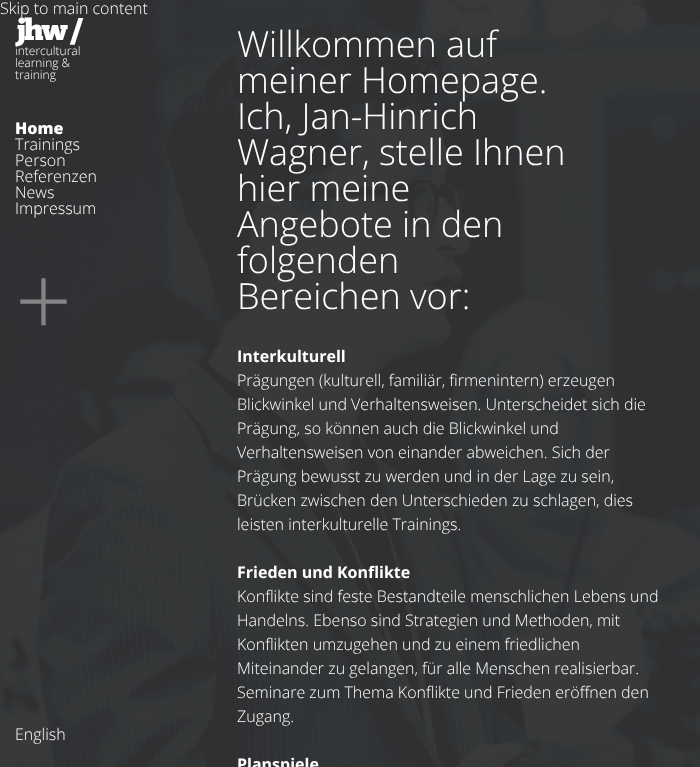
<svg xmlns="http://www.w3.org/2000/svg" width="700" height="767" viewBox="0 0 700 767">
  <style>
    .t1 { font: 300 16px Open Sans; fill: #fff; }
    .t2 { font: 30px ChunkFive; letter-spacing: -2px; fill: #fff; }
    .t3 { font: 800 16px Open Sans; fill: #fff; }
    .t4 { font: 300 100px Open Sans; fill: #838485; }
    .t5 { font: 300 36px Open Sans; fill: #fff; }
    .t6 { font: bold 16px Open Sans; fill: #fff; }
    .t7 { font: 300 12px Open Sans; fill: #fff; }
  </style>
  <rect width="100%" height="100%" fill="#333"/>
  <image x="0" y="0" width="700" height="767" href="images/1.png"/>
  <text x="0" y="14" class="t1">Skip to main content</text>
  <text x="15" y="40" class="t2">jhw /</text>
  <text x="15" y="134" class="t3">Home</text>
  <text x="15" y="150" class="t1">Trainings</text>
  <text x="15" y="166" class="t1">Person</text>
  <text x="15" y="182" class="t1">Referenzen</text>
  <text x="15" y="198" class="t1">News</text>
  <text x="15" y="214" class="t1">Impressum</text>
  <text x="15" y="337" class="t4">+</text>
  <text x="237" y="57" class="t5">Willkommen auf</text>
  <text x="237" y="93" class="t5">meiner Homepage.</text>
  <text x="237" y="129" class="t5">Ich, Jan-Hinrich</text>
  <text x="237" y="165" class="t5">Wagner, stelle Ihnen</text>
  <text x="237" y="201" class="t5">hier meine</text>
  <text x="237" y="237" class="t5">Angebote in den</text>
  <text x="237" y="273" class="t5">folgenden</text>
  <text x="237" y="309" class="t5">Bereichen vor:</text>
  <text x="237" y="362" class="t6">Interkulturell</text>
  <text x="237" y="386" class="t1">Prägungen (kulturell, familiär, firmenintern) erzeugen</text>
  <text x="237" y="410" class="t1">Blickwinkel und Verhaltensweisen. Unterscheidet sich die</text>
  <text x="237" y="434" class="t1">Prägung, so können auch die Blickwinkel und</text>
  <text x="237" y="458" class="t1">Verhaltensweisen von einander abweichen. Sich der</text>
  <text x="237" y="482" class="t1">Prägung bewusst zu werden und in der Lage zu sein,</text>
  <text x="237" y="506" class="t1">Brücken zwischen den Unterschieden zu schlagen, dies</text>
  <text x="237" y="530" class="t1">leisten interkulturelle Trainings.</text>
  <text x="237" y="578" class="t6">Frieden und Konflikte</text>
  <text x="237" y="602" class="t1">Konflikte sind feste Bestandteile menschlichen Lebens und</text>
  <text x="237" y="626" class="t1">Handelns. Ebenso sind Strategien und Methoden, mit</text>
  <text x="237" y="650" class="t1">Konflikten umzugehen und zu einem friedlichen</text>
  <text x="237" y="674" class="t1">Miteinander zu gelangen, für alle Menschen realisierbar.</text>
  <text x="237" y="698" class="t1">Seminare zum Thema Konflikte und Frieden eröffnen den</text>
  <text x="237" y="722" class="t1">Zugang.</text>
  <text x="237" y="770" class="t6">Planspiele</text>
  <text x="15" y="740" class="t1">English</text>
  <text x="15" y="55" class="t7">intercultural</text>
  <text x="15" y="67" class="t7">learning &amp;</text>
  <text x="15" y="79" class="t7">training</text>
</svg>
